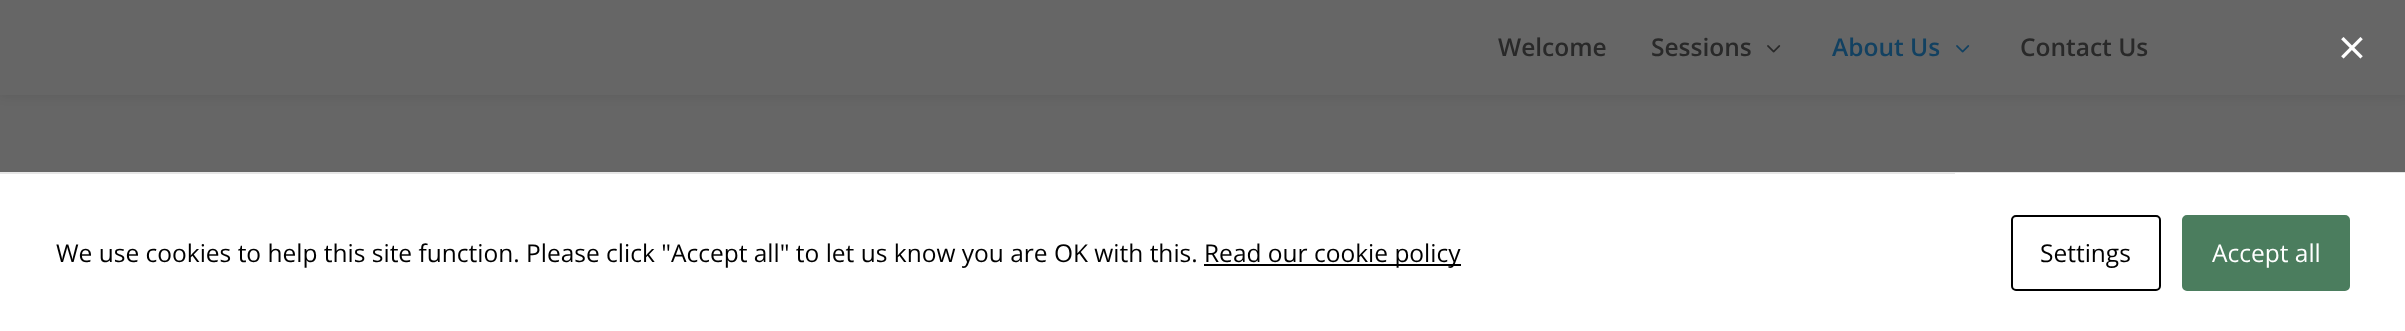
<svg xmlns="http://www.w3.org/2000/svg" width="2405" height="331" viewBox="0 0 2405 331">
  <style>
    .t1 { font: 49px Open Sans; fill: #fff; }
    .t2 { font: 24.5px Open Sans; fill: #000; }
    .t3 { font: 24.5px Open Sans; fill: #fff; }
    .t4 { font: 600 24.5px Open Sans; fill: #292929; }
    .t5 { font: 600 24.5px Open Sans; fill: #124161; }
  </style>
  <rect width="100%" height="100%" fill="#666"/>
  <rect x="0" y="0" width="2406" height="95" fill="#0000001a" filter="blur(6px)"/>
  <rect x="0" y="0" width="2405" height="95" fill="#666"/>
  <text x="2338" y="65" class="t1">×</text>
  <rect x="0" y="174" width="1955" height="157" fill="#fff"/>
  <rect x="0" y="172" width="2405" height="2" fill="#e6e6e6"/>
  <text x="56" y="262" class="t2">We use cookies to help this site function. Please click "Accept all" to let us know you are OK with this.</text>
  <rect x="1204" y="264" width="257" height="2" fill="#000"/>
  <text x="1204" y="262" class="t2">Read our cookie policy</text>
  <rect x="1955" y="173" width="450" height="158" fill="#fff"/>
  <rect x="2012" y="216" width="148" height="74" rx="4" fill="none" stroke="#000" stroke-width="2"/>
  <text x="2040" y="262" class="t2">Settings</text>
  <rect x="2183" y="216" width="166" height="74" rx="4" fill="#4b7d5e" stroke="#4b7d5e" stroke-width="2"/>
  <text x="2212" y="262" class="t3">Accept all</text>
  <text x="1498" y="56" class="t4">Welcome</text>
  <text x="1651" y="56" class="t4">Sessions</text>
  <image x="1767" y="45" width="14" height="8" href="images/1.png"/>
  <text x="1832" y="56" class="t5">About Us</text>
  <image x="1956" y="45" width="14" height="8" href="images/2.png"/>
  <text x="2020" y="56" class="t4">Contact Us</text>
</svg>
